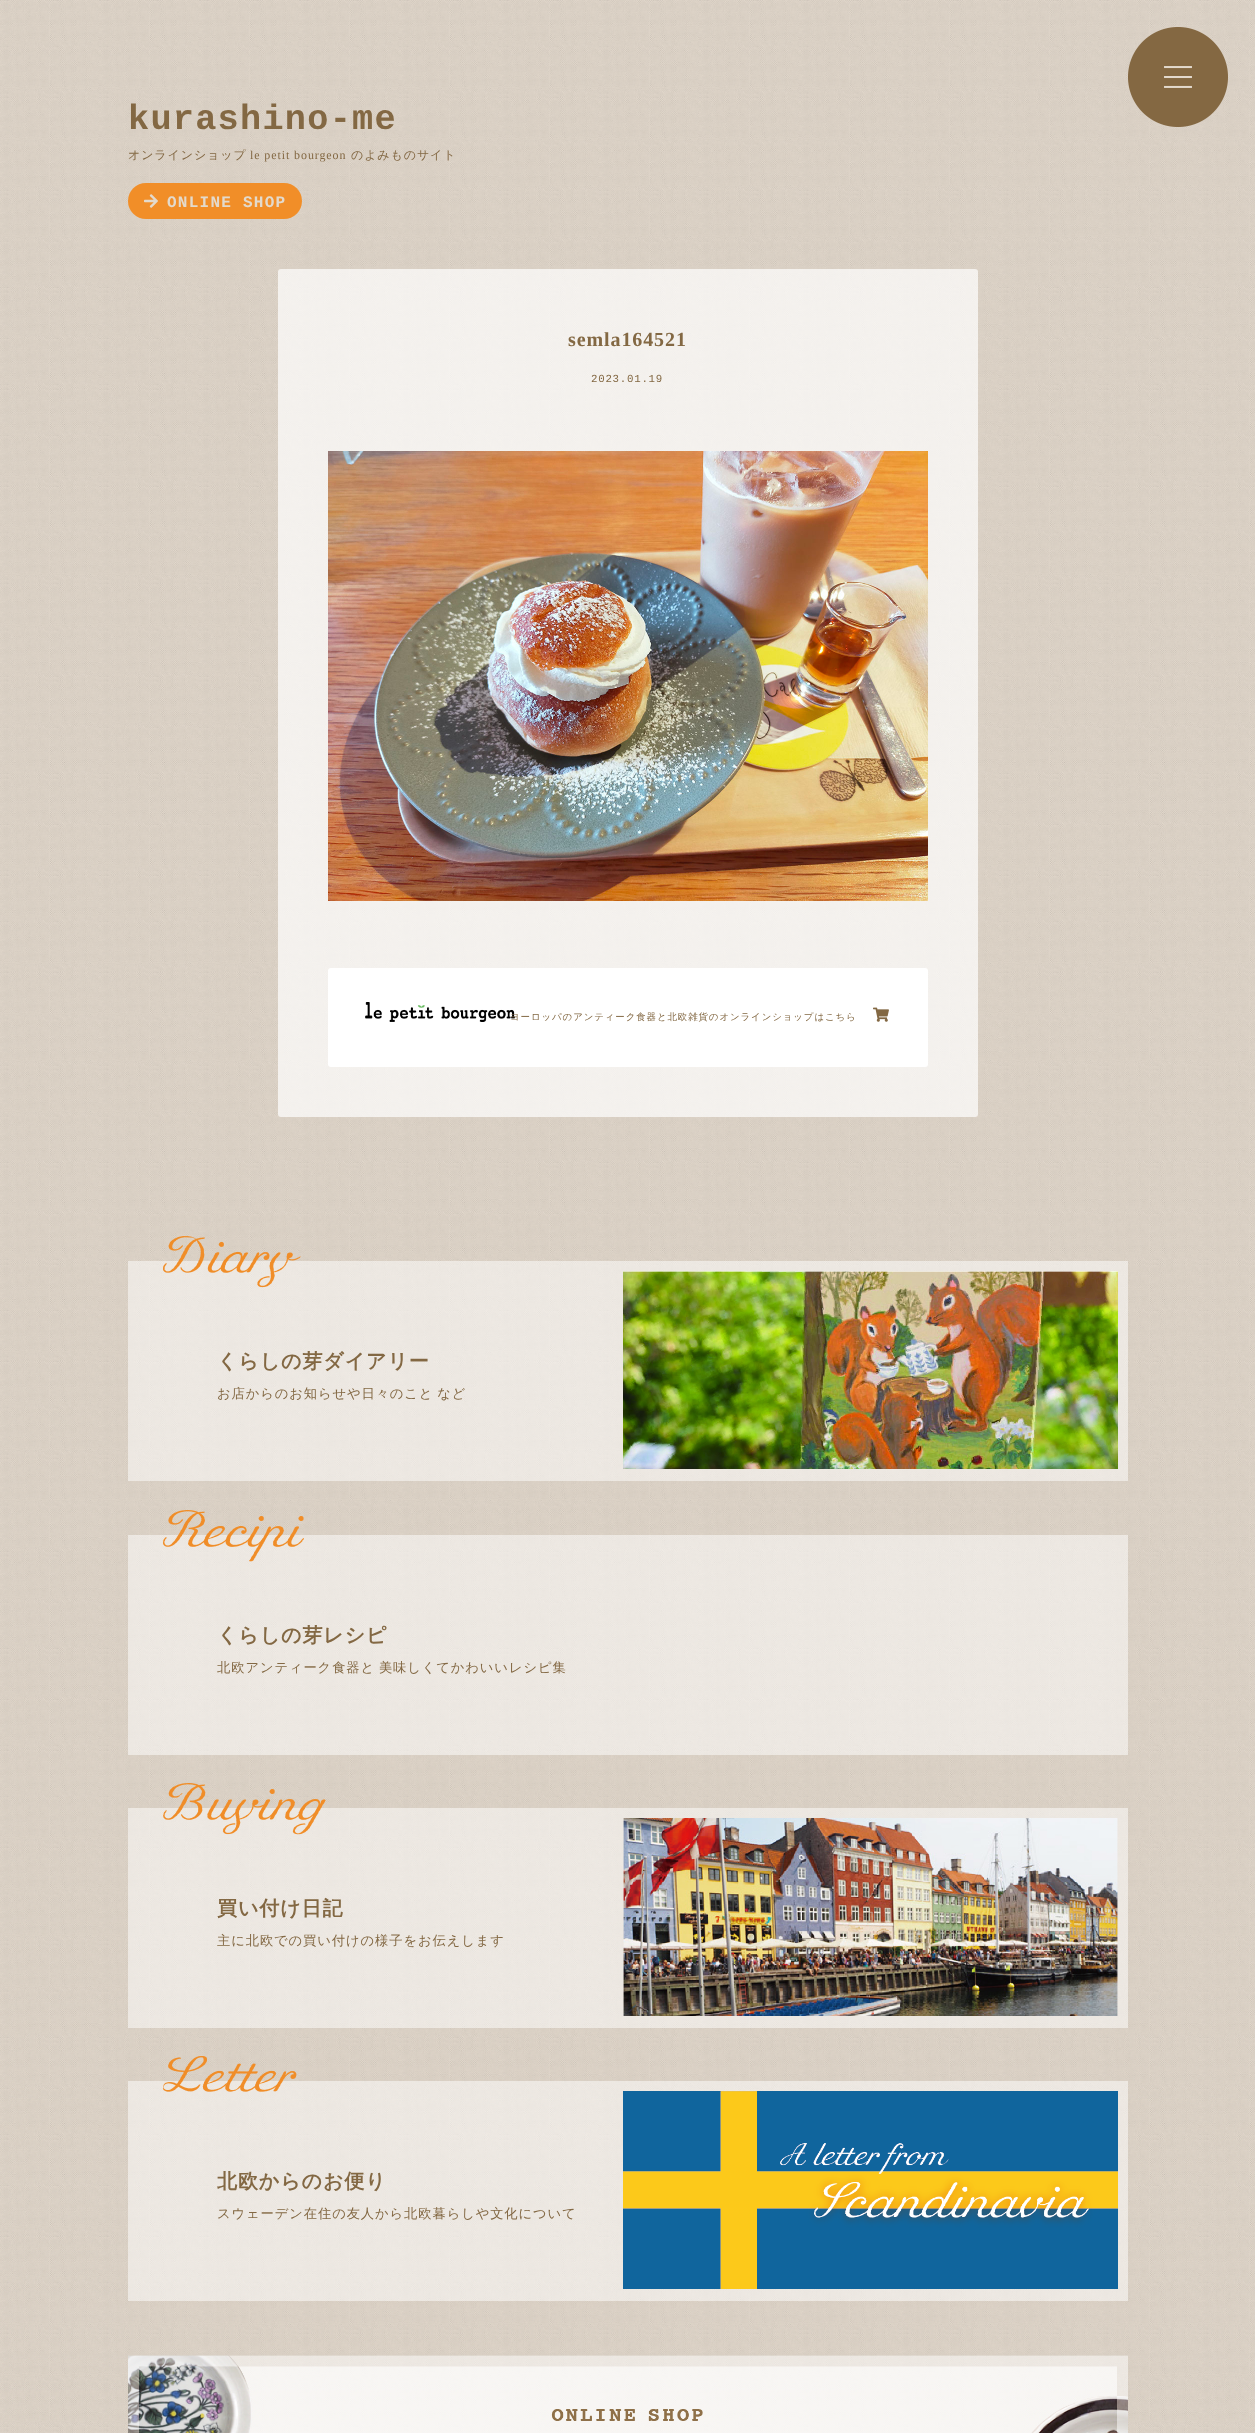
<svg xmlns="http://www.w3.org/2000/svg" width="1255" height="2433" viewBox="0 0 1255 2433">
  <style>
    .t1 { font: bold 35.25px Liberation Mono; letter-spacing: 1.25px; fill: #836843; }
    .t2 { font: 500 12px WenQuanYi Zen Hei; letter-spacing: 0.9px; fill: #836843; }
    .t3 { font: 12px Liberation Serif; letter-spacing: 0.9px; fill: #836843; }
    .t4 { font: bold 16px Liberation Mono; letter-spacing: 1.25px; fill: #e3dacc; }
    .t5 { font: bold 20px Liberation Serif; letter-spacing: 0.9px; fill: #836843; }
    .t6 { font: 10.75px Liberation Mono; letter-spacing: 0.75px; fill: #836843; }
    .t7 { font: 500 9.45px WenQuanYi Zen Hei; letter-spacing: 0.9px; fill: #836843; }
    .t8 { font: bold 20px WenQuanYi Zen Hei; letter-spacing: 0.9px; fill: #836843; }
    .t9 { font: 500 13.3px WenQuanYi Zen Hei; letter-spacing: 0.9px; fill: #836843; }
  </style>
  <rect width="100%" height="100%" fill="#fff"/>
  <image x="0" y="0" width="1255" height="2433" href="images/1.png"/>
  <image x="1128" y="27" width="100" height="100" href="images/2.png"/>
  <text x="128" y="129" class="t1">kurashino-me</text>
  <text x="128" y="159" class="t2">オンラインショップ</text>
  <text x="250" y="159" class="t3">le petit bourgeon</text>
  <text x="351" y="159" class="t2">のよみものサイト</text>
  <rect x="128" y="183" width="174" height="36" rx="18" fill="#f18e28"/>
  <image x="144" y="194" width="14" height="14" href="images/3.png"/>
  <text x="167" y="207" class="t4">ONLINE SHOP</text>
  <rect x="278" y="269" width="700" height="848" rx="3" fill="#ffffffb3"/>
  <text x="568" y="346" class="t5">semla164521</text>
  <text x="591" y="382" class="t6">2023.01.19</text>
  <image x="328" y="451" width="600" height="450" href="images/4.png"/>
  <rect x="328" y="968" width="600" height="99" rx="3" fill="#fff"/>
  <image x="365" y="1002" width="150" height="20" href="images/5.png"/>
  <text x="510" y="1020" class="t7">ヨーロッパのアンティーク食器と北欧雑貨のオンラインショップはこちら</text>
  <image x="873" y="1007" width="16" height="15" href="images/6.png"/>
  <rect x="128" y="1261" width="1000" height="220" fill="#ffffff80"/>
  <image x="623" y="1271" width="495" height="198" href="images/7.png"/>
  <image x="163" y="1236" width="138" height="52" href="images/8.png"/>
  <text x="217" y="1368" class="t8">くらしの芽ダイアリー</text>
  <text x="217" y="1398" word-spacing="-1" class="t9">お店からのお知らせや日々のこと など</text>
  <rect x="128" y="1535" width="1000" height="220" fill="#ffffff80"/>
  <image x="163" y="1510" width="141" height="52" href="images/9.png"/>
  <text x="217" y="1642" class="t8">くらしの芽レシピ</text>
  <text x="217" y="1672" word-spacing="-1" class="t9">北欧アンティーク食器と 美味しくてかわいいレシピ集</text>
  <rect x="128" y="1808" width="1000" height="220" fill="#ffffff80"/>
  <image x="623" y="1818" width="495" height="198" href="images/10.png"/>
  <image x="163" y="1783" width="163" height="52" href="images/11.png"/>
  <text x="217" y="1915" class="t8">買い付け日記</text>
  <text x="217" y="1945" class="t9">主に北欧での買い付けの様子をお伝えします</text>
  <rect x="128" y="2081" width="1000" height="220" fill="#ffffff80"/>
  <image x="623" y="2091" width="495" height="198" href="images/12.png"/>
  <image x="163" y="2056" width="134" height="36" href="images/13.png"/>
  <text x="217" y="2188" class="t8">北欧からのお便り</text>
  <text x="217" y="2218" class="t9">スウェーデン在住の友人から北欧暮らしや文化について</text>
  <image x="128" y="2355" width="1000" height="78" href="images/14.png"/>
</svg>
